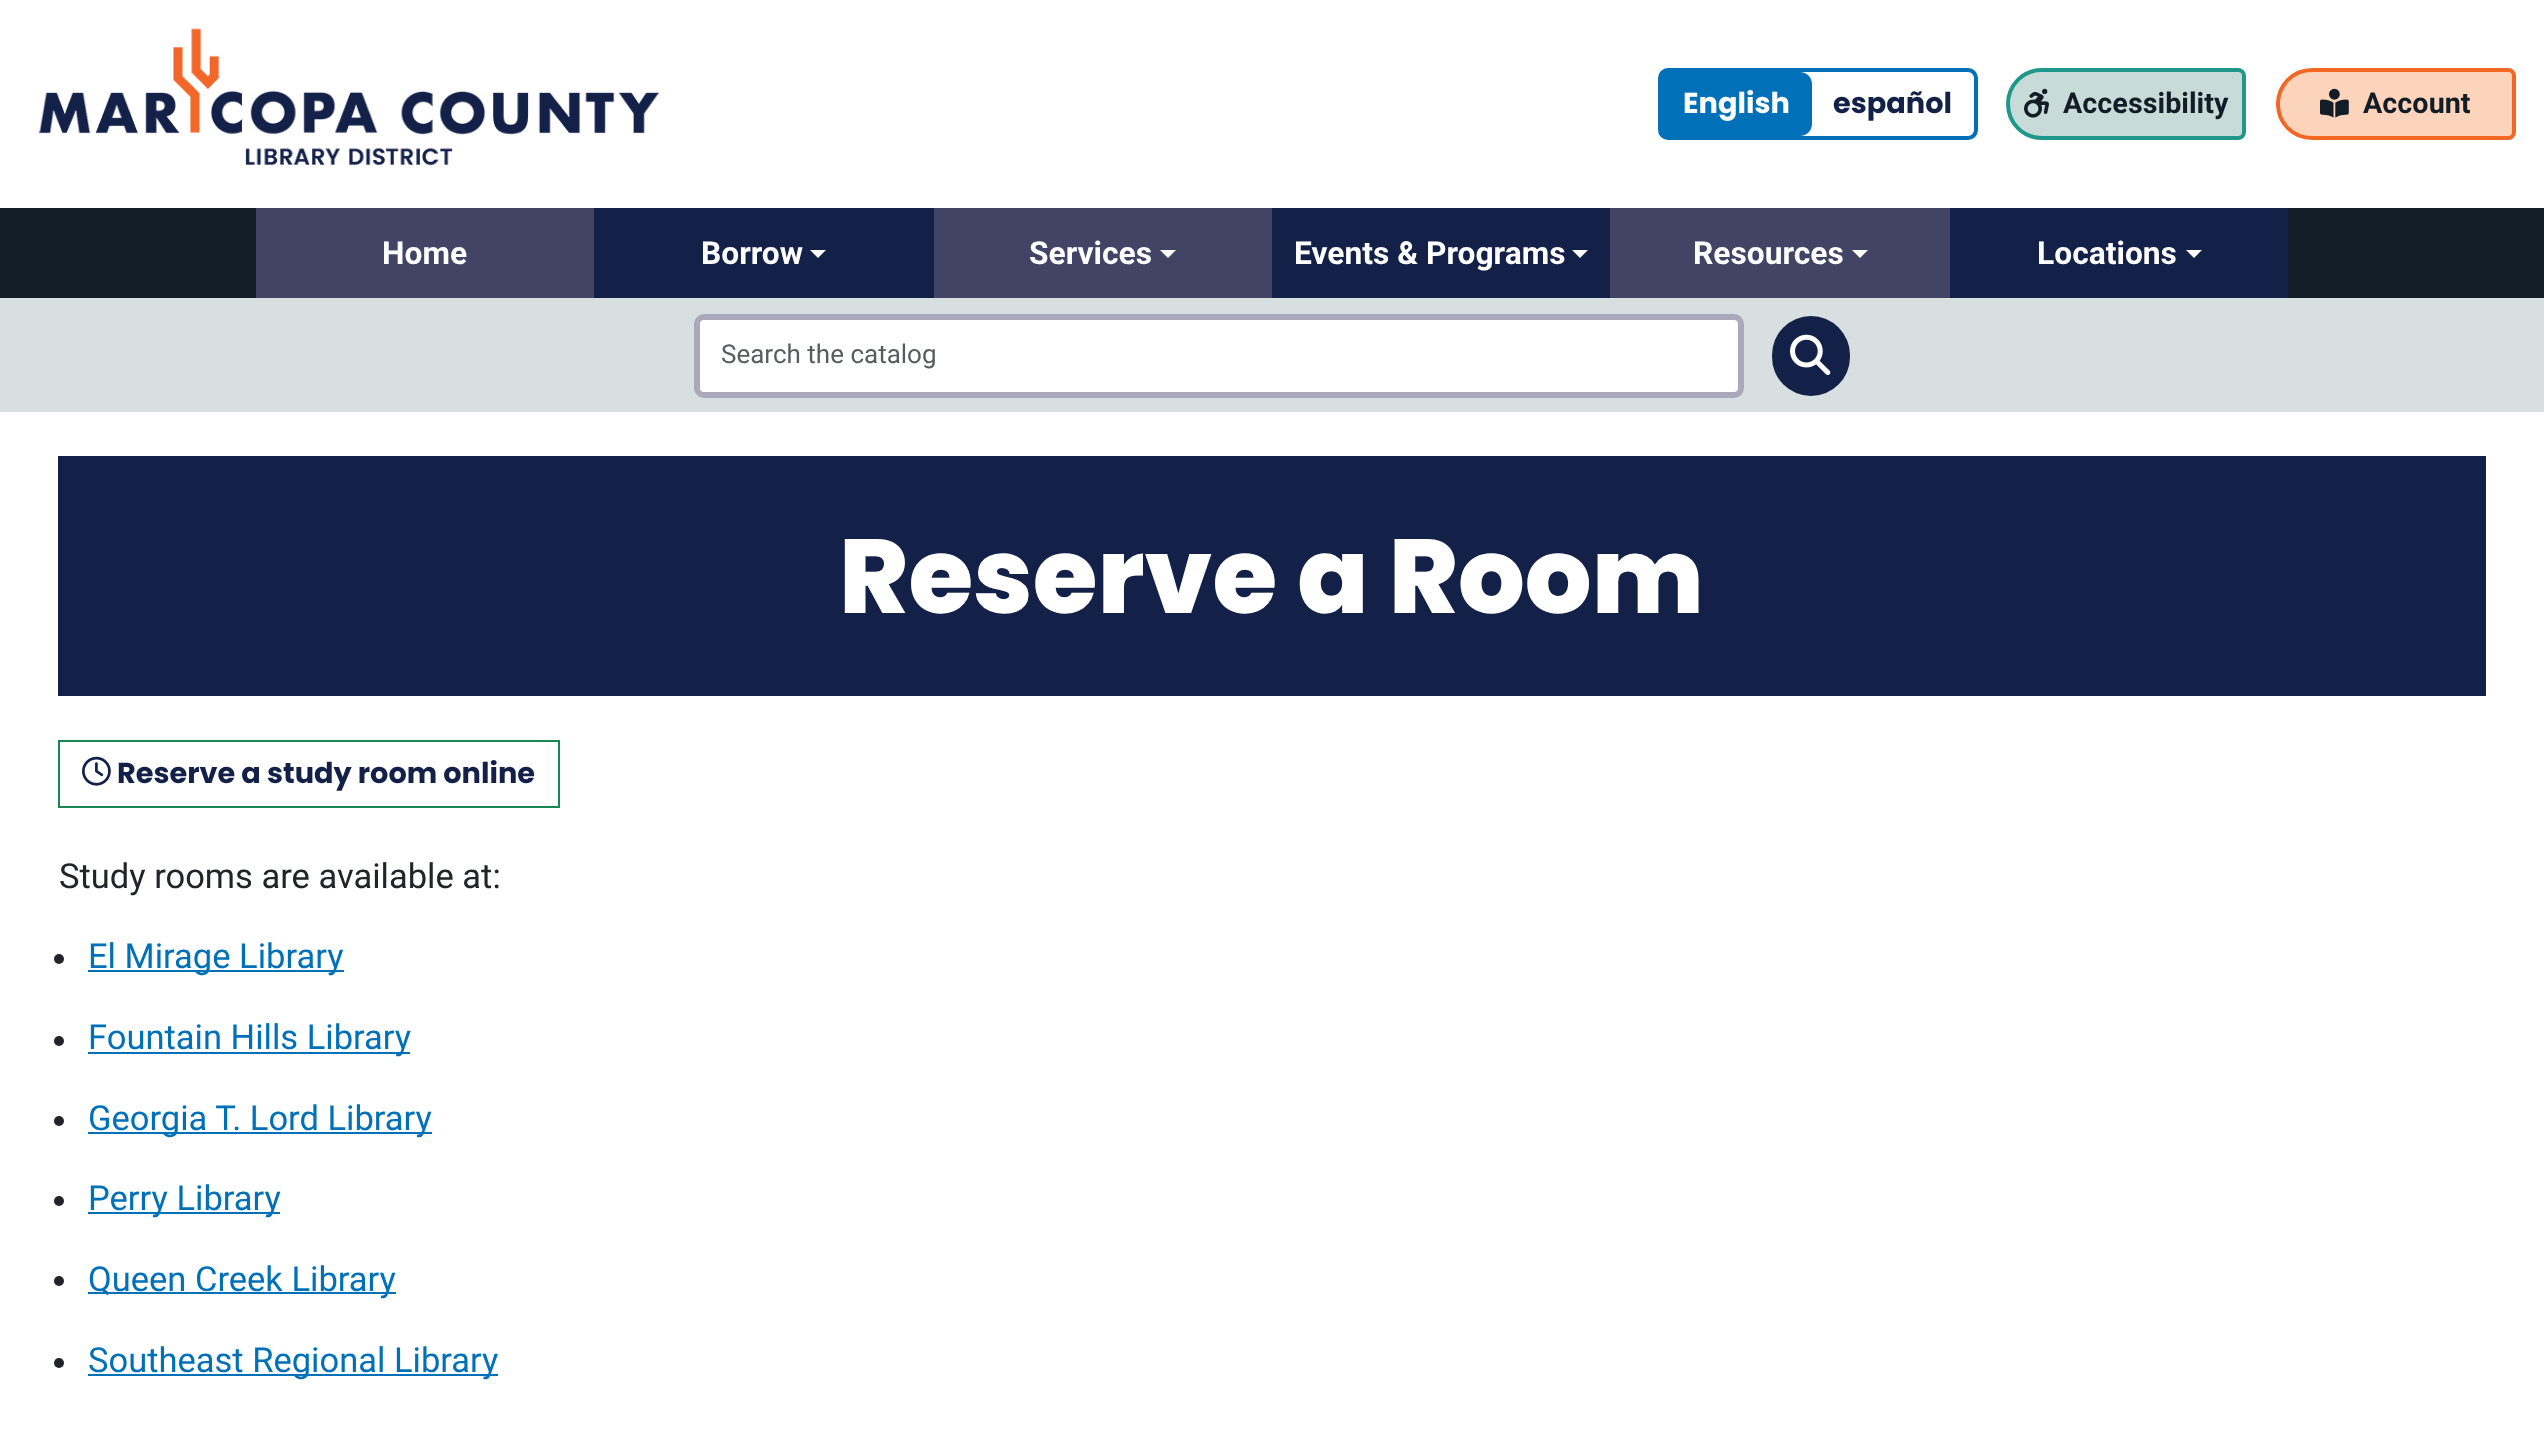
<svg xmlns="http://www.w3.org/2000/svg" width="2544" height="1437" viewBox="0 0 2544 1437">
  <style>
    .t1 { font: bold 28.75px Poppins; fill: #fff; }
    .t2 { font: bold 28.75px Poppins; fill: #132048; }
    .t3 { font: bold 28.75px Roboto; fill: #131d28; }
    .t4 { font: bold 31.75px Roboto; fill: #fff; }
    .t5 { font: 26px Roboto; fill: #595c5f; }
    .t6 { font: 800 105px Poppins; fill: #fff; }
    .t7 { font: 34.5px Roboto; fill: #212529; }
    .t8 { font: 34.5px Roboto; fill: #0070b9; }
  </style>
  <rect width="100%" height="100%" fill="#fff"/>
  <image x="38" y="28" width="622" height="137" href="images/1.png"/>
  <rect x="1660" y="70" width="316" height="68" rx="8" fill="none" stroke="#0070b9" stroke-width="4"/>
  <path d="M1662 72H1800C1806.5 72 1812 77.5 1812 84V124C1812 130.5 1806.5 136 1800 136H1662Z" fill="#0070b9"/>
  <text x="1683" y="113" class="t1">English</text>
  <text x="1833" y="113" class="t2">español</text>
  <path d="M2042 70H2238C2241.5 70 2244 72.5 2244 76V132C2244 135.5 2241.5 138 2238 138H2042C2023 138 2008 123 2008 104C2008 85 2023 70 2042 70Z" fill="#c8dbd8" stroke="#1e988a" stroke-width="4"/>
  <image x="2024" y="88" width="25" height="30" href="images/2.png"/>
  <text x="2063" y="113" class="t3">Accessibility</text>
  <path d="M2312 70H2508C2511.5 70 2514 72.5 2514 76V132C2514 135.5 2511.5 138 2508 138H2312C2293 138 2278 123 2278 104C2278 85 2293 70 2312 70Z" fill="#fcd4bb" stroke="#f26724" stroke-width="4"/>
  <image x="2320" y="88" width="29" height="30" href="images/3.png"/>
  <text x="2363" y="113" class="t3">Account</text>
  <rect x="0" y="208" width="2544" height="90" fill="#131d28"/>
  <rect x="256" y="208" width="338" height="90" fill="#424466"/>
  <text x="382" y="264" class="t4">Home</text>
  <rect x="594" y="208" width="340" height="90" fill="#132048"/>
  <text x="701" y="264" class="t4">Borrow</text>
  <path d="M810 250H826L818 258Z" fill="#fff"/>
  <rect x="934" y="208" width="338" height="90" fill="#424466"/>
  <text x="1029" y="264" class="t4">Services</text>
  <path d="M1160 250H1176L1168 258Z" fill="#fff"/>
  <rect x="1272" y="208" width="338" height="90" fill="#132048"/>
  <text x="1294" y="264" class="t4">Events &amp; Programs</text>
  <path d="M1572 250H1588L1580 258Z" fill="#fff"/>
  <rect x="1610" y="208" width="340" height="90" fill="#424466"/>
  <text x="1693" y="264" class="t4">Resources</text>
  <path d="M1852 250H1868L1860 258Z" fill="#fff"/>
  <rect x="1950" y="208" width="338" height="90" fill="#132048"/>
  <text x="2037" y="264" class="t4">Locations</text>
  <path d="M2186 250H2202L2194 258Z" fill="#fff"/>
  <rect x="0" y="298" width="2544" height="114" fill="#d8dfe1"/>
  <rect x="697" y="317" width="1044" height="78" rx="7" fill="#fff" stroke="#aaa8ba" stroke-width="6"/>
  <text x="721" y="363" class="t5">Search the catalog</text>
  <rect x="1772" y="316" width="78" height="80" rx="39" fill="#132048"/>
  <image x="1790" y="334" width="41" height="41" href="images/4.png"/>
  <rect x="58" y="456" width="2428" height="240" fill="#132048"/>
  <text x="839" y="613" class="t6">Reserve a Room</text>
  <rect x="59" y="741" width="500" height="66" fill="none" stroke="#198754" stroke-width="2"/>
  <image x="82" y="756" width="29" height="30" href="images/5.png"/>
  <text x="117" y="783" class="t2">Reserve a study room online</text>
  <text x="59" y="888" class="t7">Study rooms are available at:</text>
  <circle cx="59" cy="959" r="5" fill="#212529"/>
  <rect x="88" y="970" width="256" height="2" fill="#0070b9"/>
  <text x="88" y="968" class="t8">El Mirage Library</text>
  <circle cx="59" cy="1041" r="5" fill="#212529"/>
  <rect x="88" y="1052" width="322" height="2" fill="#0070b9"/>
  <text x="88" y="1049" class="t8">Fountain Hills Library</text>
  <circle cx="59" cy="1121" r="5" fill="#212529"/>
  <rect x="88" y="1132" width="344" height="2" fill="#0070b9"/>
  <text x="88" y="1130" class="t8">Georgia T. Lord Library</text>
  <circle cx="59" cy="1201" r="5" fill="#212529"/>
  <rect x="88" y="1212" width="192" height="2" fill="#0070b9"/>
  <text x="88" y="1210" class="t8">Perry Library</text>
  <circle cx="59" cy="1281" r="5" fill="#212529"/>
  <rect x="88" y="1292" width="308" height="2" fill="#0070b9"/>
  <text x="88" y="1291" class="t8">Queen Creek Library</text>
  <circle cx="59" cy="1363" r="5" fill="#212529"/>
  <rect x="88" y="1374" width="410" height="2" fill="#0070b9"/>
  <text x="88" y="1372" class="t8">Southeast Regional Library</text>
</svg>
